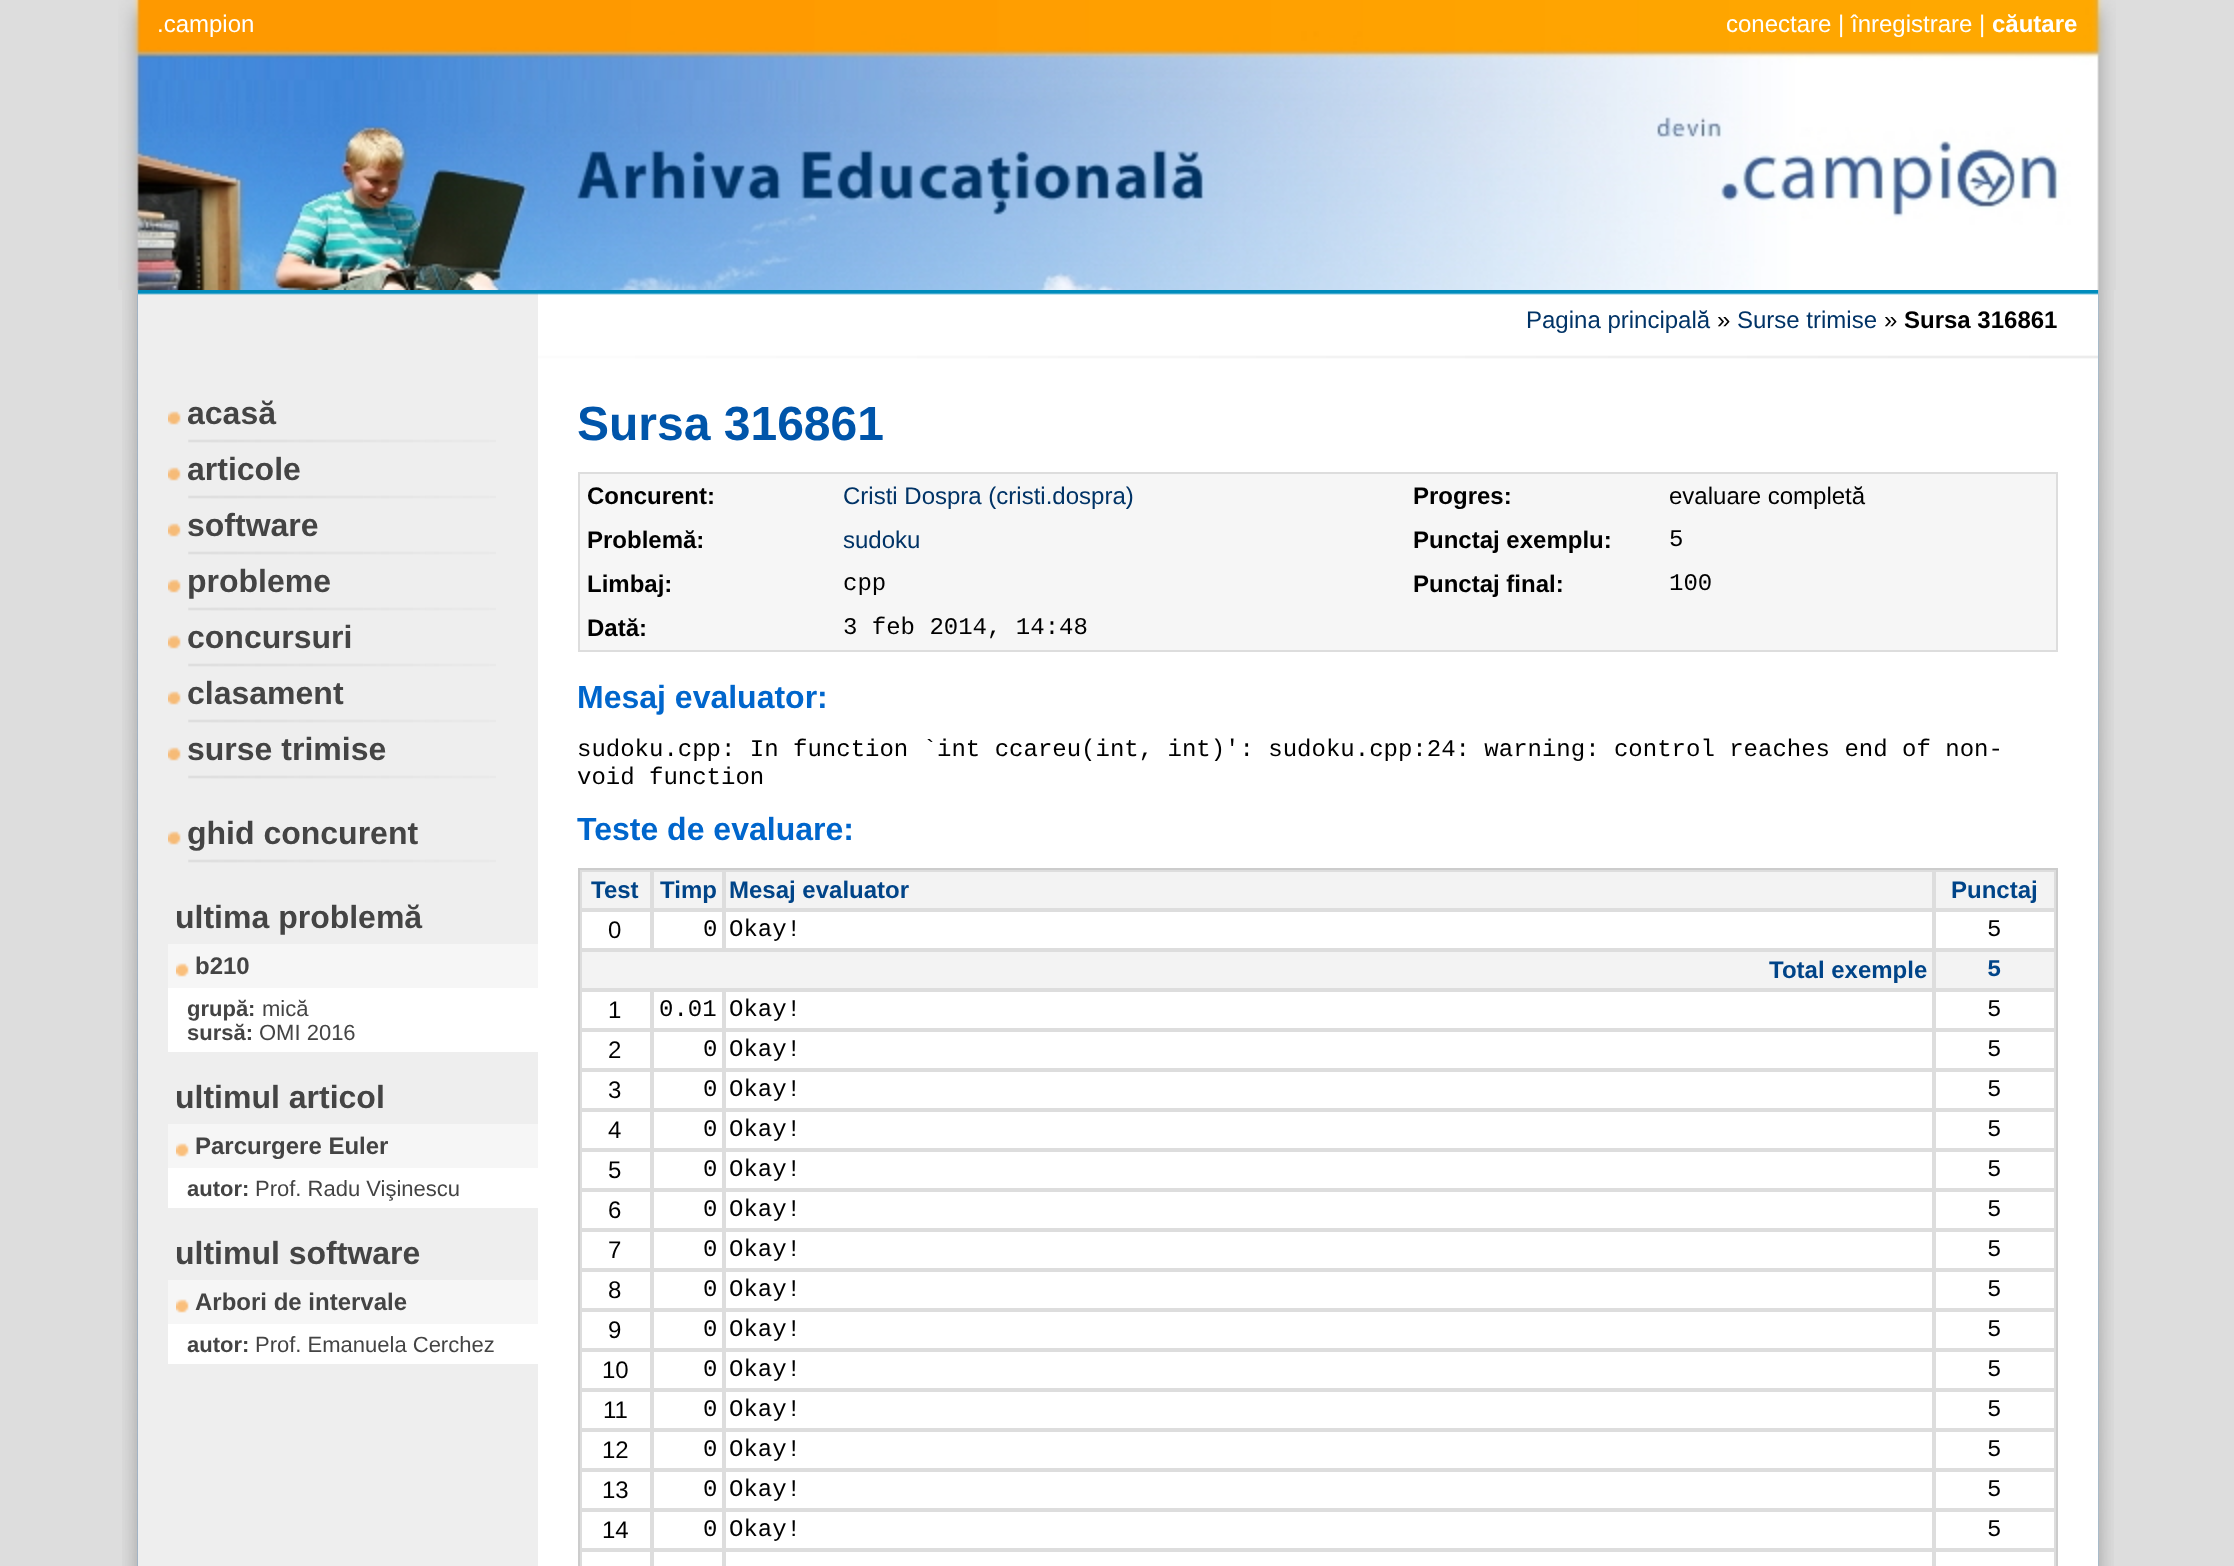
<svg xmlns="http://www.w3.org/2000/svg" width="2234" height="1566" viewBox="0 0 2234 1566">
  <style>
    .t1 { font: 24px Liberation Sans; fill: #fff; }
    .t2 { font: bold 24px Liberation Sans; fill: #fff; }
    .t3 { font: 24px Liberation Sans; fill: #036; }
    .t4 { font: 24px Liberation Sans; fill: #000; }
    .t5 { font: bold 24px Liberation Sans; fill: #000; }
    .t6 { font: bold 32px Liberation Sans; fill: #444; }
    .t7 { font: bold 24px Liberation Sans; fill: #444; }
    .t8 { font: bold 22px Liberation Sans; fill: #444; }
    .t9 { font: 22px Liberation Sans; fill: #444; }
    .t10 { font: bold 48px Liberation Sans; fill: #05a; }
    .t11 { font: 24px Liberation Mono; fill: #000; }
    .t12 { font: bold 32px Liberation Sans; fill: #06c; }
    .t13 { font: bold 24px Liberation Sans; fill: #048; }
    .t14 { font: bold 24px Liberation Mono; fill: #048; }
  </style>
  <rect width="100%" height="100%" fill="#ddd"/>
  <image x="118" y="0" width="1998" height="290" href="images/1.png"/>
  <text x="157" y="32" class="t1">.campion</text>
  <text x="1726" y="32" class="t1">conectare | înregistrare |</text>
  <text x="1992" y="32" class="t2">căutare</text>
  <image x="122" y="290" width="1992" height="1276" href="images/2.png"/>
  <image x="138" y="290" width="400" height="106" href="images/3.png"/>
  <image x="538" y="290" width="1560" height="106" href="images/4.png"/>
  <text x="1526" y="328" class="t3">Pagina principală</text>
  <text x="1717" y="328" class="t4">»</text>
  <text x="1737" y="328" class="t3">Surse trimise</text>
  <text x="1884" y="328" class="t4">»</text>
  <text x="1904" y="328" class="t5">Sursa 316861</text>
  <rect x="138" y="396" width="400" height="1170" fill="#eee"/>
  <image x="188" y="439" width="308" height="4" href="images/5.png"/>
  <image x="168" y="411" width="13" height="14" href="images/6.png"/>
  <text x="187" y="424" class="t6">acasă</text>
  <image x="188" y="495" width="308" height="4" href="images/5.png"/>
  <image x="168" y="467" width="13" height="14" href="images/7.png"/>
  <text x="187" y="480" class="t6">articole</text>
  <image x="188" y="551" width="308" height="4" href="images/5.png"/>
  <image x="168" y="523" width="13" height="14" href="images/8.png"/>
  <text x="187" y="536" class="t6">software</text>
  <image x="188" y="607" width="308" height="4" href="images/5.png"/>
  <image x="168" y="579" width="13" height="14" href="images/6.png"/>
  <text x="187" y="592" class="t6">probleme</text>
  <image x="188" y="663" width="308" height="4" href="images/5.png"/>
  <image x="168" y="635" width="13" height="14" href="images/6.png"/>
  <text x="187" y="648" class="t6">concursuri</text>
  <image x="188" y="719" width="308" height="4" href="images/5.png"/>
  <image x="168" y="691" width="13" height="14" href="images/6.png"/>
  <text x="187" y="704" class="t6">clasament</text>
  <image x="188" y="775" width="308" height="4" href="images/5.png"/>
  <image x="168" y="747" width="13" height="14" href="images/6.png"/>
  <text x="187" y="760" class="t6">surse trimise</text>
  <image x="188" y="859" width="308" height="4" href="images/5.png"/>
  <image x="168" y="831" width="13" height="14" href="images/6.png"/>
  <text x="187" y="844" class="t6">ghid concurent</text>
  <text x="175" y="928" class="t6">ultima problemă</text>
  <rect x="168" y="944" width="370" height="44" fill="#f6f6f6"/>
  <image x="176" y="963" width="13" height="14" href="images/9.png"/>
  <text x="195" y="974" class="t7">b210</text>
  <rect x="168" y="988" width="370" height="64" fill="#fff"/>
  <text x="187" y="1016" class="t8">grupă:</text>
  <text x="262" y="1016" class="t9">mică</text>
  <text x="187" y="1040" class="t8">sursă:</text>
  <text x="259" y="1040" class="t9">OMI 2016</text>
  <text x="175" y="1108" class="t6">ultimul articol</text>
  <rect x="168" y="1124" width="370" height="44" fill="#f6f6f6"/>
  <image x="176" y="1143" width="13" height="14" href="images/9.png"/>
  <text x="195" y="1154" class="t7">Parcurgere Euler</text>
  <rect x="168" y="1168" width="370" height="40" fill="#fff"/>
  <text x="187" y="1196" class="t8">autor:</text>
  <text x="255" y="1196" class="t9">Prof. Radu Vişinescu</text>
  <text x="175" y="1264" class="t6">ultimul software</text>
  <rect x="168" y="1280" width="370" height="44" fill="#f6f6f6"/>
  <image x="176" y="1299" width="13" height="14" href="images/9.png"/>
  <text x="195" y="1310" class="t7">Arbori de intervale</text>
  <rect x="168" y="1324" width="370" height="40" fill="#fff"/>
  <text x="187" y="1352" class="t8">autor:</text>
  <text x="255" y="1352" class="t9">Prof. Emanuela Cerchez</text>
  <rect x="538" y="396" width="1560" height="1170" fill="#fff"/>
  <text x="577" y="440" class="t10">Sursa 316861</text>
  <rect x="579" y="473" width="1478" height="178" fill="#f6f6f6" stroke="#ddd" stroke-width="2"/>
  <text x="587" y="504" class="t5">Concurent:</text>
  <text x="843" y="504" class="t3">Cristi Dospra (cristi.dospra)</text>
  <text x="1413" y="504" class="t5">Progres:</text>
  <text x="1669" y="504" class="t4">evaluare completă</text>
  <text x="587" y="548" class="t5">Problemă:</text>
  <text x="843" y="548" class="t3">sudoku</text>
  <text x="1413" y="548" class="t5">Punctaj exemplu:</text>
  <text x="1669" y="546" class="t11">5</text>
  <text x="587" y="592" class="t5">Limbaj:</text>
  <text x="843" y="590" class="t11">cpp</text>
  <text x="1413" y="592" class="t5">Punctaj final:</text>
  <text x="1669" y="590" class="t11">100</text>
  <text x="587" y="636" class="t5">Dată:</text>
  <text x="843" y="634" class="t11">3 feb 2014, 14:48</text>
  <text x="577" y="708" class="t12">Mesaj evaluator:</text>
  <text x="577" y="756" class="t11">sudoku.cpp: In function `int ccareu(int, int)': sudoku.cpp:24: warning: control reaches end of non-</text>
  <text x="577" y="784" class="t11">void function</text>
  <text x="577" y="840" class="t12">Teste de evaluare:</text>
  <rect x="579" y="869" width="1478" height="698" fill="none" stroke="#ccc" stroke-width="2"/>
  <rect x="581" y="871" width="70" height="38" fill="#f3f3f3" stroke="#ddd" stroke-width="2"/>
  <text x="591" y="898" class="t13">Test</text>
  <rect x="653" y="871" width="70" height="38" fill="#f3f3f3" stroke="#ddd" stroke-width="2"/>
  <text x="660" y="898" class="t13">Timp</text>
  <rect x="725" y="871" width="1208" height="38" fill="#f3f3f3" stroke="#ddd" stroke-width="2"/>
  <text x="729" y="898" class="t13">Mesaj evaluator</text>
  <rect x="1935" y="871" width="120" height="38" fill="#f3f3f3" stroke="#ddd" stroke-width="2"/>
  <text x="1951" y="898" class="t13">Punctaj</text>
  <rect x="581" y="911" width="70" height="38" fill="none" stroke="#ddd" stroke-width="2"/>
  <text x="608" y="938" class="t4">0</text>
  <rect x="653" y="911" width="70" height="38" fill="none" stroke="#ddd" stroke-width="2"/>
  <text x="703" y="936" class="t11">0</text>
  <rect x="725" y="911" width="1208" height="38" fill="none" stroke="#ddd" stroke-width="2"/>
  <text x="729" y="936" class="t11">Okay!</text>
  <rect x="1935" y="911" width="120" height="38" fill="none" stroke="#ddd" stroke-width="2"/>
  <text x="1987" y="936" class="t11">5</text>
  <rect x="581" y="951" width="1352" height="38" fill="#f3f3f3" stroke="#ddd" stroke-width="2"/>
  <text x="1769" y="978" class="t13">Total exemple</text>
  <rect x="1935" y="951" width="120" height="38" fill="#f3f3f3" stroke="#ddd" stroke-width="2"/>
  <text x="1987" y="976" class="t14">5</text>
  <rect x="581" y="991" width="70" height="38" fill="none" stroke="#ddd" stroke-width="2"/>
  <text x="608" y="1018" class="t4">1</text>
  <rect x="653" y="991" width="70" height="38" fill="none" stroke="#ddd" stroke-width="2"/>
  <text x="659" y="1016" class="t11">0.01</text>
  <rect x="725" y="991" width="1208" height="38" fill="none" stroke="#ddd" stroke-width="2"/>
  <text x="729" y="1016" class="t11">Okay!</text>
  <rect x="1935" y="991" width="120" height="38" fill="none" stroke="#ddd" stroke-width="2"/>
  <text x="1987" y="1016" class="t11">5</text>
  <rect x="581" y="1031" width="70" height="38" fill="none" stroke="#ddd" stroke-width="2"/>
  <text x="608" y="1058" class="t4">2</text>
  <rect x="653" y="1031" width="70" height="38" fill="none" stroke="#ddd" stroke-width="2"/>
  <text x="703" y="1056" class="t11">0</text>
  <rect x="725" y="1031" width="1208" height="38" fill="none" stroke="#ddd" stroke-width="2"/>
  <text x="729" y="1056" class="t11">Okay!</text>
  <rect x="1935" y="1031" width="120" height="38" fill="none" stroke="#ddd" stroke-width="2"/>
  <text x="1987" y="1056" class="t11">5</text>
  <rect x="581" y="1071" width="70" height="38" fill="none" stroke="#ddd" stroke-width="2"/>
  <text x="608" y="1098" class="t4">3</text>
  <rect x="653" y="1071" width="70" height="38" fill="none" stroke="#ddd" stroke-width="2"/>
  <text x="703" y="1096" class="t11">0</text>
  <rect x="725" y="1071" width="1208" height="38" fill="none" stroke="#ddd" stroke-width="2"/>
  <text x="729" y="1096" class="t11">Okay!</text>
  <rect x="1935" y="1071" width="120" height="38" fill="none" stroke="#ddd" stroke-width="2"/>
  <text x="1987" y="1096" class="t11">5</text>
  <rect x="581" y="1111" width="70" height="38" fill="none" stroke="#ddd" stroke-width="2"/>
  <text x="608" y="1138" class="t4">4</text>
  <rect x="653" y="1111" width="70" height="38" fill="none" stroke="#ddd" stroke-width="2"/>
  <text x="703" y="1136" class="t11">0</text>
  <rect x="725" y="1111" width="1208" height="38" fill="none" stroke="#ddd" stroke-width="2"/>
  <text x="729" y="1136" class="t11">Okay!</text>
  <rect x="1935" y="1111" width="120" height="38" fill="none" stroke="#ddd" stroke-width="2"/>
  <text x="1987" y="1136" class="t11">5</text>
  <rect x="581" y="1151" width="70" height="38" fill="none" stroke="#ddd" stroke-width="2"/>
  <text x="608" y="1178" class="t4">5</text>
  <rect x="653" y="1151" width="70" height="38" fill="none" stroke="#ddd" stroke-width="2"/>
  <text x="703" y="1176" class="t11">0</text>
  <rect x="725" y="1151" width="1208" height="38" fill="none" stroke="#ddd" stroke-width="2"/>
  <text x="729" y="1176" class="t11">Okay!</text>
  <rect x="1935" y="1151" width="120" height="38" fill="none" stroke="#ddd" stroke-width="2"/>
  <text x="1987" y="1176" class="t11">5</text>
  <rect x="581" y="1191" width="70" height="38" fill="none" stroke="#ddd" stroke-width="2"/>
  <text x="608" y="1218" class="t4">6</text>
  <rect x="653" y="1191" width="70" height="38" fill="none" stroke="#ddd" stroke-width="2"/>
  <text x="703" y="1216" class="t11">0</text>
  <rect x="725" y="1191" width="1208" height="38" fill="none" stroke="#ddd" stroke-width="2"/>
  <text x="729" y="1216" class="t11">Okay!</text>
  <rect x="1935" y="1191" width="120" height="38" fill="none" stroke="#ddd" stroke-width="2"/>
  <text x="1987" y="1216" class="t11">5</text>
  <rect x="581" y="1231" width="70" height="38" fill="none" stroke="#ddd" stroke-width="2"/>
  <text x="608" y="1258" class="t4">7</text>
  <rect x="653" y="1231" width="70" height="38" fill="none" stroke="#ddd" stroke-width="2"/>
  <text x="703" y="1256" class="t11">0</text>
  <rect x="725" y="1231" width="1208" height="38" fill="none" stroke="#ddd" stroke-width="2"/>
  <text x="729" y="1256" class="t11">Okay!</text>
  <rect x="1935" y="1231" width="120" height="38" fill="none" stroke="#ddd" stroke-width="2"/>
  <text x="1987" y="1256" class="t11">5</text>
  <rect x="581" y="1271" width="70" height="38" fill="none" stroke="#ddd" stroke-width="2"/>
  <text x="608" y="1298" class="t4">8</text>
  <rect x="653" y="1271" width="70" height="38" fill="none" stroke="#ddd" stroke-width="2"/>
  <text x="703" y="1296" class="t11">0</text>
  <rect x="725" y="1271" width="1208" height="38" fill="none" stroke="#ddd" stroke-width="2"/>
  <text x="729" y="1296" class="t11">Okay!</text>
  <rect x="1935" y="1271" width="120" height="38" fill="none" stroke="#ddd" stroke-width="2"/>
  <text x="1987" y="1296" class="t11">5</text>
  <rect x="581" y="1311" width="70" height="38" fill="none" stroke="#ddd" stroke-width="2"/>
  <text x="608" y="1338" class="t4">9</text>
  <rect x="653" y="1311" width="70" height="38" fill="none" stroke="#ddd" stroke-width="2"/>
  <text x="703" y="1336" class="t11">0</text>
  <rect x="725" y="1311" width="1208" height="38" fill="none" stroke="#ddd" stroke-width="2"/>
  <text x="729" y="1336" class="t11">Okay!</text>
  <rect x="1935" y="1311" width="120" height="38" fill="none" stroke="#ddd" stroke-width="2"/>
  <text x="1987" y="1336" class="t11">5</text>
  <rect x="581" y="1351" width="70" height="38" fill="none" stroke="#ddd" stroke-width="2"/>
  <text x="602" y="1378" class="t4">10</text>
  <rect x="653" y="1351" width="70" height="38" fill="none" stroke="#ddd" stroke-width="2"/>
  <text x="703" y="1376" class="t11">0</text>
  <rect x="725" y="1351" width="1208" height="38" fill="none" stroke="#ddd" stroke-width="2"/>
  <text x="729" y="1376" class="t11">Okay!</text>
  <rect x="1935" y="1351" width="120" height="38" fill="none" stroke="#ddd" stroke-width="2"/>
  <text x="1987" y="1376" class="t11">5</text>
  <rect x="581" y="1391" width="70" height="38" fill="none" stroke="#ddd" stroke-width="2"/>
  <text x="603" y="1418" class="t4">11</text>
  <rect x="653" y="1391" width="70" height="38" fill="none" stroke="#ddd" stroke-width="2"/>
  <text x="703" y="1416" class="t11">0</text>
  <rect x="725" y="1391" width="1208" height="38" fill="none" stroke="#ddd" stroke-width="2"/>
  <text x="729" y="1416" class="t11">Okay!</text>
  <rect x="1935" y="1391" width="120" height="38" fill="none" stroke="#ddd" stroke-width="2"/>
  <text x="1987" y="1416" class="t11">5</text>
  <rect x="581" y="1431" width="70" height="38" fill="none" stroke="#ddd" stroke-width="2"/>
  <text x="602" y="1458" class="t4">12</text>
  <rect x="653" y="1431" width="70" height="38" fill="none" stroke="#ddd" stroke-width="2"/>
  <text x="703" y="1456" class="t11">0</text>
  <rect x="725" y="1431" width="1208" height="38" fill="none" stroke="#ddd" stroke-width="2"/>
  <text x="729" y="1456" class="t11">Okay!</text>
  <rect x="1935" y="1431" width="120" height="38" fill="none" stroke="#ddd" stroke-width="2"/>
  <text x="1987" y="1456" class="t11">5</text>
  <rect x="581" y="1471" width="70" height="38" fill="none" stroke="#ddd" stroke-width="2"/>
  <text x="602" y="1498" class="t4">13</text>
  <rect x="653" y="1471" width="70" height="38" fill="none" stroke="#ddd" stroke-width="2"/>
  <text x="703" y="1496" class="t11">0</text>
  <rect x="725" y="1471" width="1208" height="38" fill="none" stroke="#ddd" stroke-width="2"/>
  <text x="729" y="1496" class="t11">Okay!</text>
  <rect x="1935" y="1471" width="120" height="38" fill="none" stroke="#ddd" stroke-width="2"/>
  <text x="1987" y="1496" class="t11">5</text>
  <rect x="581" y="1511" width="70" height="38" fill="none" stroke="#ddd" stroke-width="2"/>
  <text x="602" y="1538" class="t4">14</text>
  <rect x="653" y="1511" width="70" height="38" fill="none" stroke="#ddd" stroke-width="2"/>
  <text x="703" y="1536" class="t11">0</text>
  <rect x="725" y="1511" width="1208" height="38" fill="none" stroke="#ddd" stroke-width="2"/>
  <text x="729" y="1536" class="t11">Okay!</text>
  <rect x="1935" y="1511" width="120" height="38" fill="none" stroke="#ddd" stroke-width="2"/>
  <text x="1987" y="1536" class="t11">5</text>
  <rect x="581" y="1551" width="70" height="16" fill="none" stroke="#ddd" stroke-width="2"/>
  <rect x="653" y="1551" width="70" height="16" fill="none" stroke="#ddd" stroke-width="2"/>
  <rect x="725" y="1551" width="1208" height="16" fill="none" stroke="#ddd" stroke-width="2"/>
  <rect x="1935" y="1551" width="120" height="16" fill="none" stroke="#ddd" stroke-width="2"/>
</svg>
